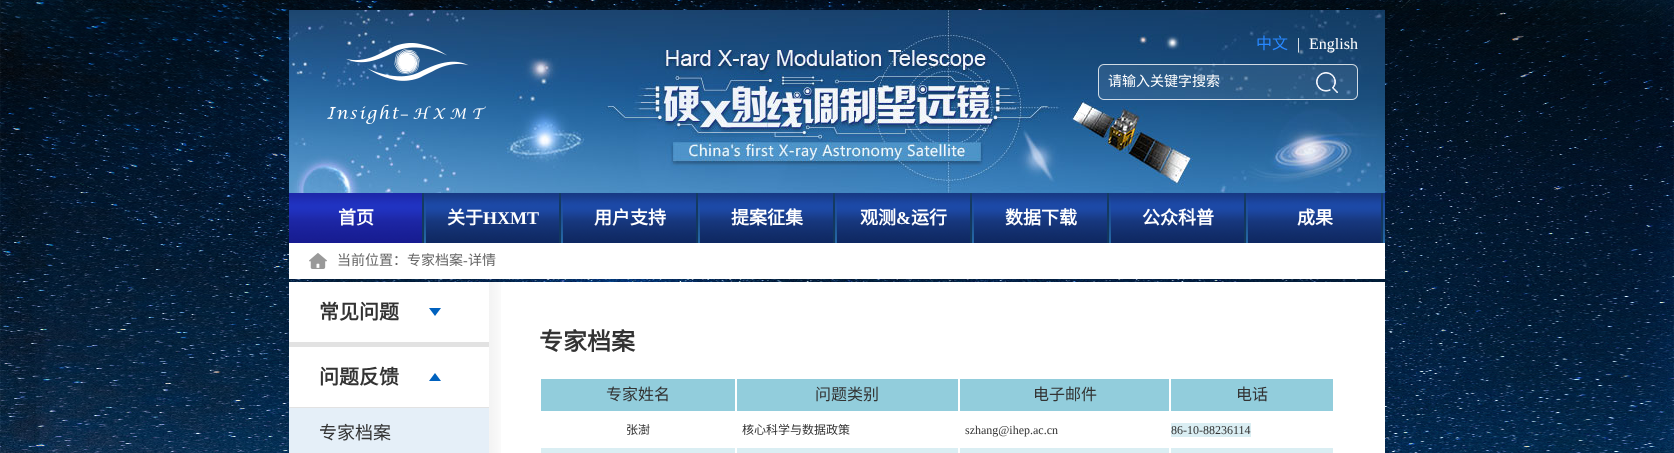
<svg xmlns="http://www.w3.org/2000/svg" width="1674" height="453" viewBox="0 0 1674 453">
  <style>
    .t1 { font: 16px Noto Sans CJK SC; fill: #2888ff; }
    .t2 { font: 16px Liberation Serif; fill: #fff; }
    .t3 { font: 14px Noto Sans CJK SC; fill: #fff; }
    .t4 { font: bold 18px Noto Sans CJK SC; fill: #fff; }
    .t5 { font: bold 18px Liberation Serif; fill: #fff; }
    .t6 { font: 14px Noto Sans CJK SC; fill: #666; }
    .t7 { font: 14px Liberation Serif; fill: #666; }
    .t8 { font: bold 20px Noto Sans CJK SC; fill: #333; }
    .t9 { font: 18px Noto Sans CJK SC; fill: #333; }
    .t10 { font: bold 24px Noto Sans CJK SC; fill: #333; }
    .t11 { font: 16px Noto Sans CJK SC; fill: #333; }
    .t12 { font: 12px Noto Sans CJK SC; fill: #333; }
    .t13 { font: 12px Liberation Serif; fill: #333; }
  </style>
  <rect width="100%" height="100%" fill="#fff"/>
  <image x="0" y="0" width="1674" height="453" href="images/1.png"/>
  <image x="289" y="10" width="1096" height="183" href="images/2.png"/>
  <image x="327" y="43" width="159" height="81" href="images/3.png"/>
  <text x="1256" y="49" class="t1">中文</text>
  <text x="1297" y="49" class="t2">|</text>
  <text x="1309" y="49" class="t2">English</text>
  <image x="1098" y="64" width="260" height="36" href="images/4.png"/>
  <text x="1108" y="86" class="t3">请输入关键字搜索</text>
  <image x="1316" y="72" width="22" height="21" href="images/5.png"/>
  <image x="289" y="193" width="1096" height="50" href="images/6.png"/>
  <image x="422" y="193" width="4" height="50" href="images/7.png"/>
  <rect x="289" y="193" width="133" height="50" fill="#2b00ff4d"/>
  <text x="338" y="224" class="t4">首页</text>
  <image x="559" y="193" width="4" height="50" href="images/8.png"/>
  <text x="447" y="224" class="t4">关于</text>
  <text x="483" y="224" class="t5">HXMT</text>
  <image x="696" y="193" width="4" height="50" href="images/9.png"/>
  <text x="594" y="224" class="t4">用户支持</text>
  <image x="833" y="193" width="4" height="50" href="images/10.png"/>
  <text x="731" y="224" class="t4">提案征集</text>
  <image x="970" y="193" width="4" height="50" href="images/11.png"/>
  <text x="860" y="224" class="t4">观测</text>
  <text x="896" y="224" class="t5">&amp;</text>
  <text x="911" y="224" class="t4">运行</text>
  <image x="1107" y="193" width="4" height="50" href="images/12.png"/>
  <text x="1005" y="224" class="t4">数据下载</text>
  <image x="1244" y="193" width="4" height="50" href="images/13.png"/>
  <text x="1142" y="224" class="t4">公众科普</text>
  <image x="1381" y="193" width="4" height="50" href="images/14.png"/>
  <text x="1297" y="224" class="t4">成果</text>
  <rect x="289" y="243" width="1096" height="36" fill="#fff"/>
  <image x="309" y="253" width="18" height="16" href="images/15.png"/>
  <text x="337" y="265" class="t6">当前位置：专家档案</text>
  <text x="463" y="265" class="t7">-</text>
  <text x="468" y="265" class="t6">详情</text>
  <rect x="289" y="282" width="1096" height="171" fill="#fff"/>
  <image x="489" y="282" width="12" height="171" href="images/16.png"/>
  <rect x="289" y="342" width="200" height="5" fill="#e2e2e2"/>
  <image x="429" y="308" width="12" height="8" href="images/17.png"/>
  <text x="319" y="319" class="t8">常见问题</text>
  <image x="429" y="373" width="12" height="8" href="images/18.png"/>
  <text x="319" y="384" class="t8">问题反馈</text>
  <rect x="289" y="407" width="200" height="1" fill="#e2e2e2"/>
  <rect x="289" y="408" width="200" height="45" fill="#e5eff8"/>
  <text x="319" y="439" class="t9">专家档案</text>
  <text x="539" y="350" class="t10">专家档案</text>
  <rect x="541" y="379" width="194" height="32" fill="#92cddc"/>
  <text x="606" y="400" class="t11">专家姓名</text>
  <rect x="737" y="379" width="221" height="32" fill="#92cddc"/>
  <text x="815" y="400" class="t11">问题类别</text>
  <rect x="960" y="379" width="209" height="32" fill="#92cddc"/>
  <text x="1033" y="400" class="t11">电子邮件</text>
  <rect x="1171" y="379" width="162" height="32" fill="#92cddc"/>
  <text x="1236" y="400" class="t11">电话</text>
  <text x="626" y="434" class="t12">张澍</text>
  <text x="742" y="434" class="t12">核心科学与数据政策</text>
  <text x="965" y="434" class="t13">szhang@ihep.ac.cn</text>
  <rect x="1171" y="423" width="80" height="14" fill="#daeef3"/>
  <text x="1171" y="434" class="t13">86-10-88236114</text>
  <rect x="541" y="448" width="194" height="5" fill="#daeef3"/>
  <rect x="737" y="448" width="221" height="5" fill="#daeef3"/>
  <rect x="960" y="448" width="209" height="5" fill="#daeef3"/>
  <rect x="1171" y="448" width="162" height="5" fill="#daeef3"/>
</svg>
